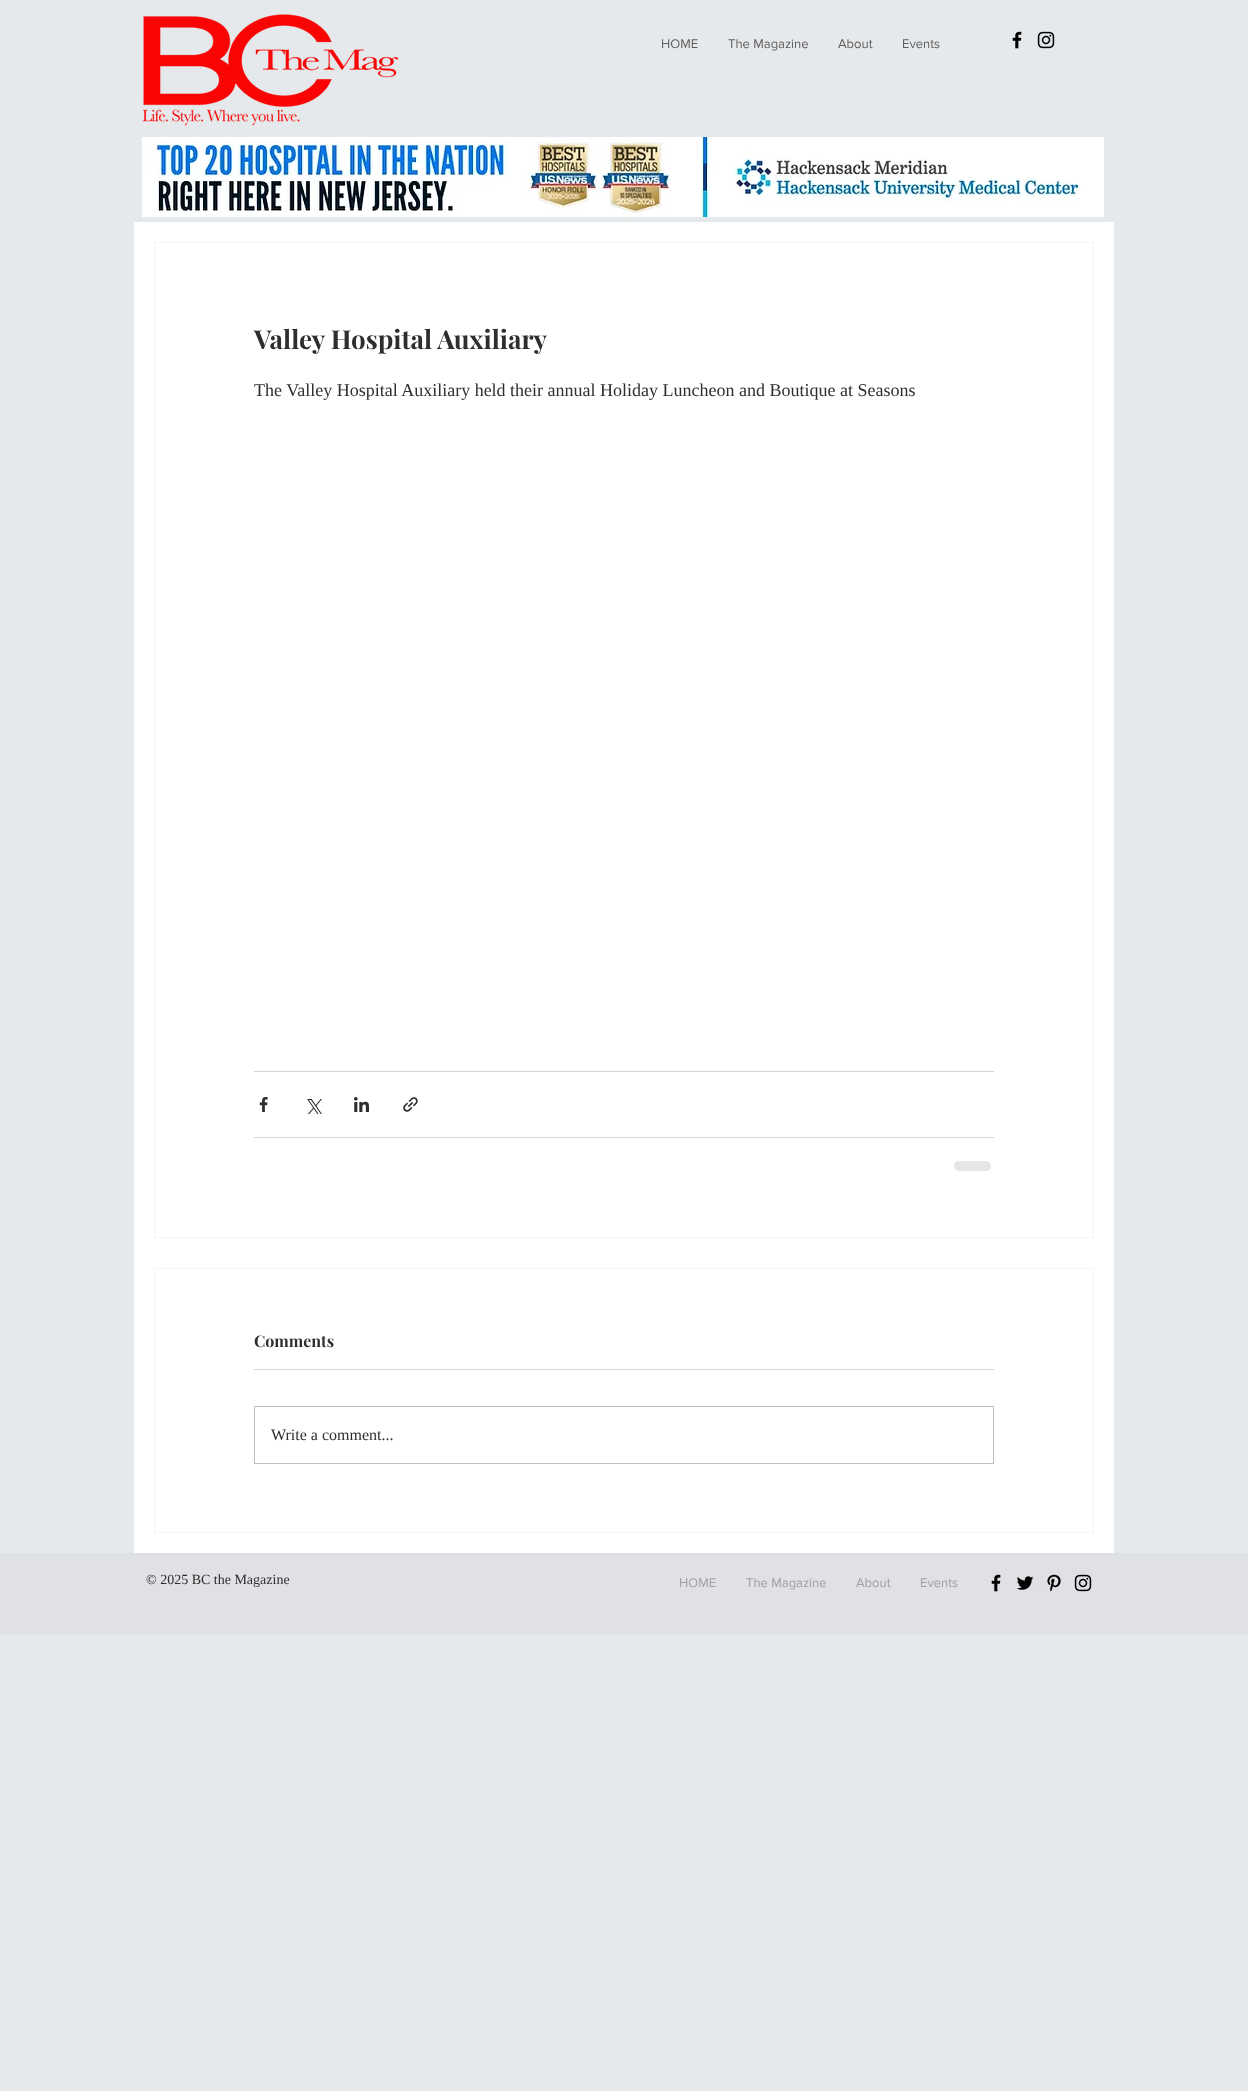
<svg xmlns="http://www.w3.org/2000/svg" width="1248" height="2091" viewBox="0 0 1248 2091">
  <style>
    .t1 { font: 13px 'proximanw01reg'; fill: #605e5e; }
    .t2 { font: bold 26px Playfair Display; fill: #2f2e2e; }
    .t3 { font: 18px Liberation Serif; fill: #2f2e2e; }
    .t4 { font: bold 16px Playfair Display; fill: #2f2e2e; }
    .t5 { font: 16px Liberation Serif; fill: #2f2e2e; }
    .t6 { font: 14px Liberation Serif; fill: #2f2e2e; }
    .t7 { font: 13px 'proximanw01reg'; fill: #a0a09f; }
  </style>
  <rect width="100%" height="100%" fill="#e6e9eb"/>
  <image x="142" y="14" width="257" height="112" href="images/1.png"/>
  <text x="661" y="48" class="t1">HOME</text>
  <text x="728" y="48" class="t1">The Magazine</text>
  <text x="838" y="48" class="t1">About</text>
  <text x="902" y="48" class="t1">Events</text>
  <image x="1012" y="31" width="10" height="18" href="images/2.png"/>
  <image x="1037" y="31" width="18" height="18" href="images/3.png"/>
  <image x="142" y="137" width="962" height="80" href="images/4.png"/>
  <rect x="134" y="222" width="980" height="1331" fill="#fff"/>
  <rect x="154.5" y="242.5" width="939" height="995" fill="none" stroke="#f5f5f5"/>
  <text x="254" y="349" class="t2">Valley Hospital Auxiliary</text>
  <text x="254" y="396" class="t3">The Valley Hospital Auxiliary held their annual Holiday Luncheon and Boutique at Seasons</text>
  <rect x="254" y="1071" width="740" height="1" fill="#d5d5d5"/>
  <image x="259" y="1097" width="9" height="15" href="images/5.png"/>
  <image x="307" y="1099" width="15" height="15" href="images/6.png"/>
  <image x="354" y="1097" width="15" height="15" href="images/7.png"/>
  <image x="403" y="1097" width="15" height="15" href="images/8.png"/>
  <rect x="254" y="1137" width="740" height="1" fill="#d5d5d5"/>
  <rect x="954" y="1161" width="37" height="10" rx="5" fill="#e6e6e6"/>
  <rect x="154.5" y="1268.5" width="939" height="264" fill="none" stroke="#f5f5f5"/>
  <text x="254" y="1347" class="t4">Comments</text>
  <rect x="254" y="1369" width="740" height="1" fill="#d5d5d5"/>
  <rect x="254.5" y="1406.5" width="739" height="57" fill="none" stroke="#c1c0c0"/>
  <text x="271" y="1440" class="t5">Write a comment...</text>
  <rect x="0" y="1553" width="1248" height="82" fill="#dfe1e4"/>
  <text x="146" y="1584" class="t6">© 2025 BC the Magazine</text>
  <text x="679" y="1587" class="t7">HOME</text>
  <text x="746" y="1587" class="t7">The Magazine</text>
  <text x="856" y="1587" class="t7">About</text>
  <text x="920" y="1587" class="t7">Events</text>
  <image x="991" y="1574" width="10" height="18" href="images/9.png"/>
  <image x="1017" y="1576" width="17" height="14" href="images/10.png"/>
  <image x="1047" y="1574" width="14" height="18" href="images/11.png"/>
  <image x="1074" y="1574" width="18" height="18" href="images/12.png"/>
</svg>
